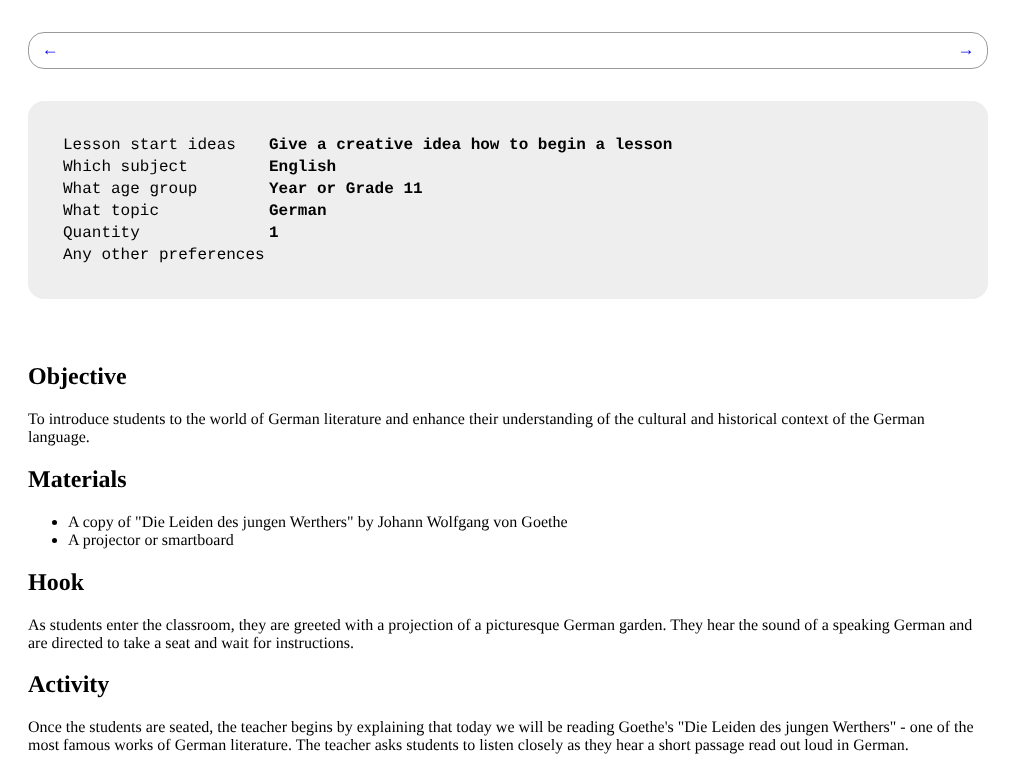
<svg xmlns="http://www.w3.org/2000/svg" width="1016" height="766" viewBox="0 0 1016 766">
  <style>
    .t1 { font: 17px Liberation Mono; fill: #00e; }
    .t2 { font: 16px Liberation Mono; fill: #000; }
    .t3 { font: bold 16px Liberation Mono; fill: #000; }
    .t4 { font: bold 24px Liberation Serif; fill: #000; }
    .t5 { font: 16px Liberation Serif; fill: #000; }
  </style>
  <rect width="100%" height="100%" fill="#fff"/>
  <rect x="28.5" y="32.5" width="959" height="36" rx="15.5" fill="none" stroke="#999"/>
  <text x="45" y="55" class="t1">←</text>
  <text x="961" y="55" class="t1">→</text>
  <rect x="28" y="101" width="960" height="198" rx="16" fill="#eee"/>
  <text x="63" y="149" class="t2">Lesson start ideas</text>
  <text x="269" y="149" class="t3">Give a creative idea how to begin a lesson</text>
  <text x="63" y="171" class="t2">Which subject</text>
  <text x="269" y="171" class="t3">English</text>
  <text x="63" y="193" class="t2">What age group</text>
  <text x="269" y="193" class="t3">Year or Grade 11</text>
  <text x="63" y="215" class="t2">What topic</text>
  <text x="269" y="215" class="t3">German</text>
  <text x="63" y="237" class="t2">Quantity</text>
  <text x="269" y="237" class="t3">1</text>
  <text x="63" y="259" class="t2">Any other preferences</text>
  <text x="28" y="384" class="t4">Objective</text>
  <text x="28" y="424" class="t5">To introduce students to the world of German literature and enhance their understanding of the cultural and historical context of the German</text>
  <text x="28" y="442" class="t5">language.</text>
  <text x="28" y="487" class="t4">Materials</text>
  <circle cx="54.5" cy="522.5" r="2.5" fill="#000"/>
  <text x="68" y="527" class="t5">A copy of "Die Leiden des jungen Werthers" by Johann Wolfgang von Goethe</text>
  <circle cx="54.5" cy="540.5" r="2.5" fill="#000"/>
  <text x="68" y="545" class="t5">A projector or smartboard</text>
  <text x="28" y="590" class="t4">Hook</text>
  <text x="28" y="630" class="t5">As students enter the classroom, they are greeted with a projection of a picturesque German garden. They hear the sound of a speaking German and</text>
  <text x="28" y="648" class="t5">are directed to take a seat and wait for instructions.</text>
  <text x="28" y="692" class="t4">Activity</text>
  <text x="28" y="732" class="t5">Once the students are seated, the teacher begins by explaining that today we will be reading Goethe's "Die Leiden des jungen Werthers" - one of the</text>
  <text x="28" y="750" class="t5">most famous works of German literature. The teacher asks students to listen closely as they hear a short passage read out loud in German.</text>
</svg>
